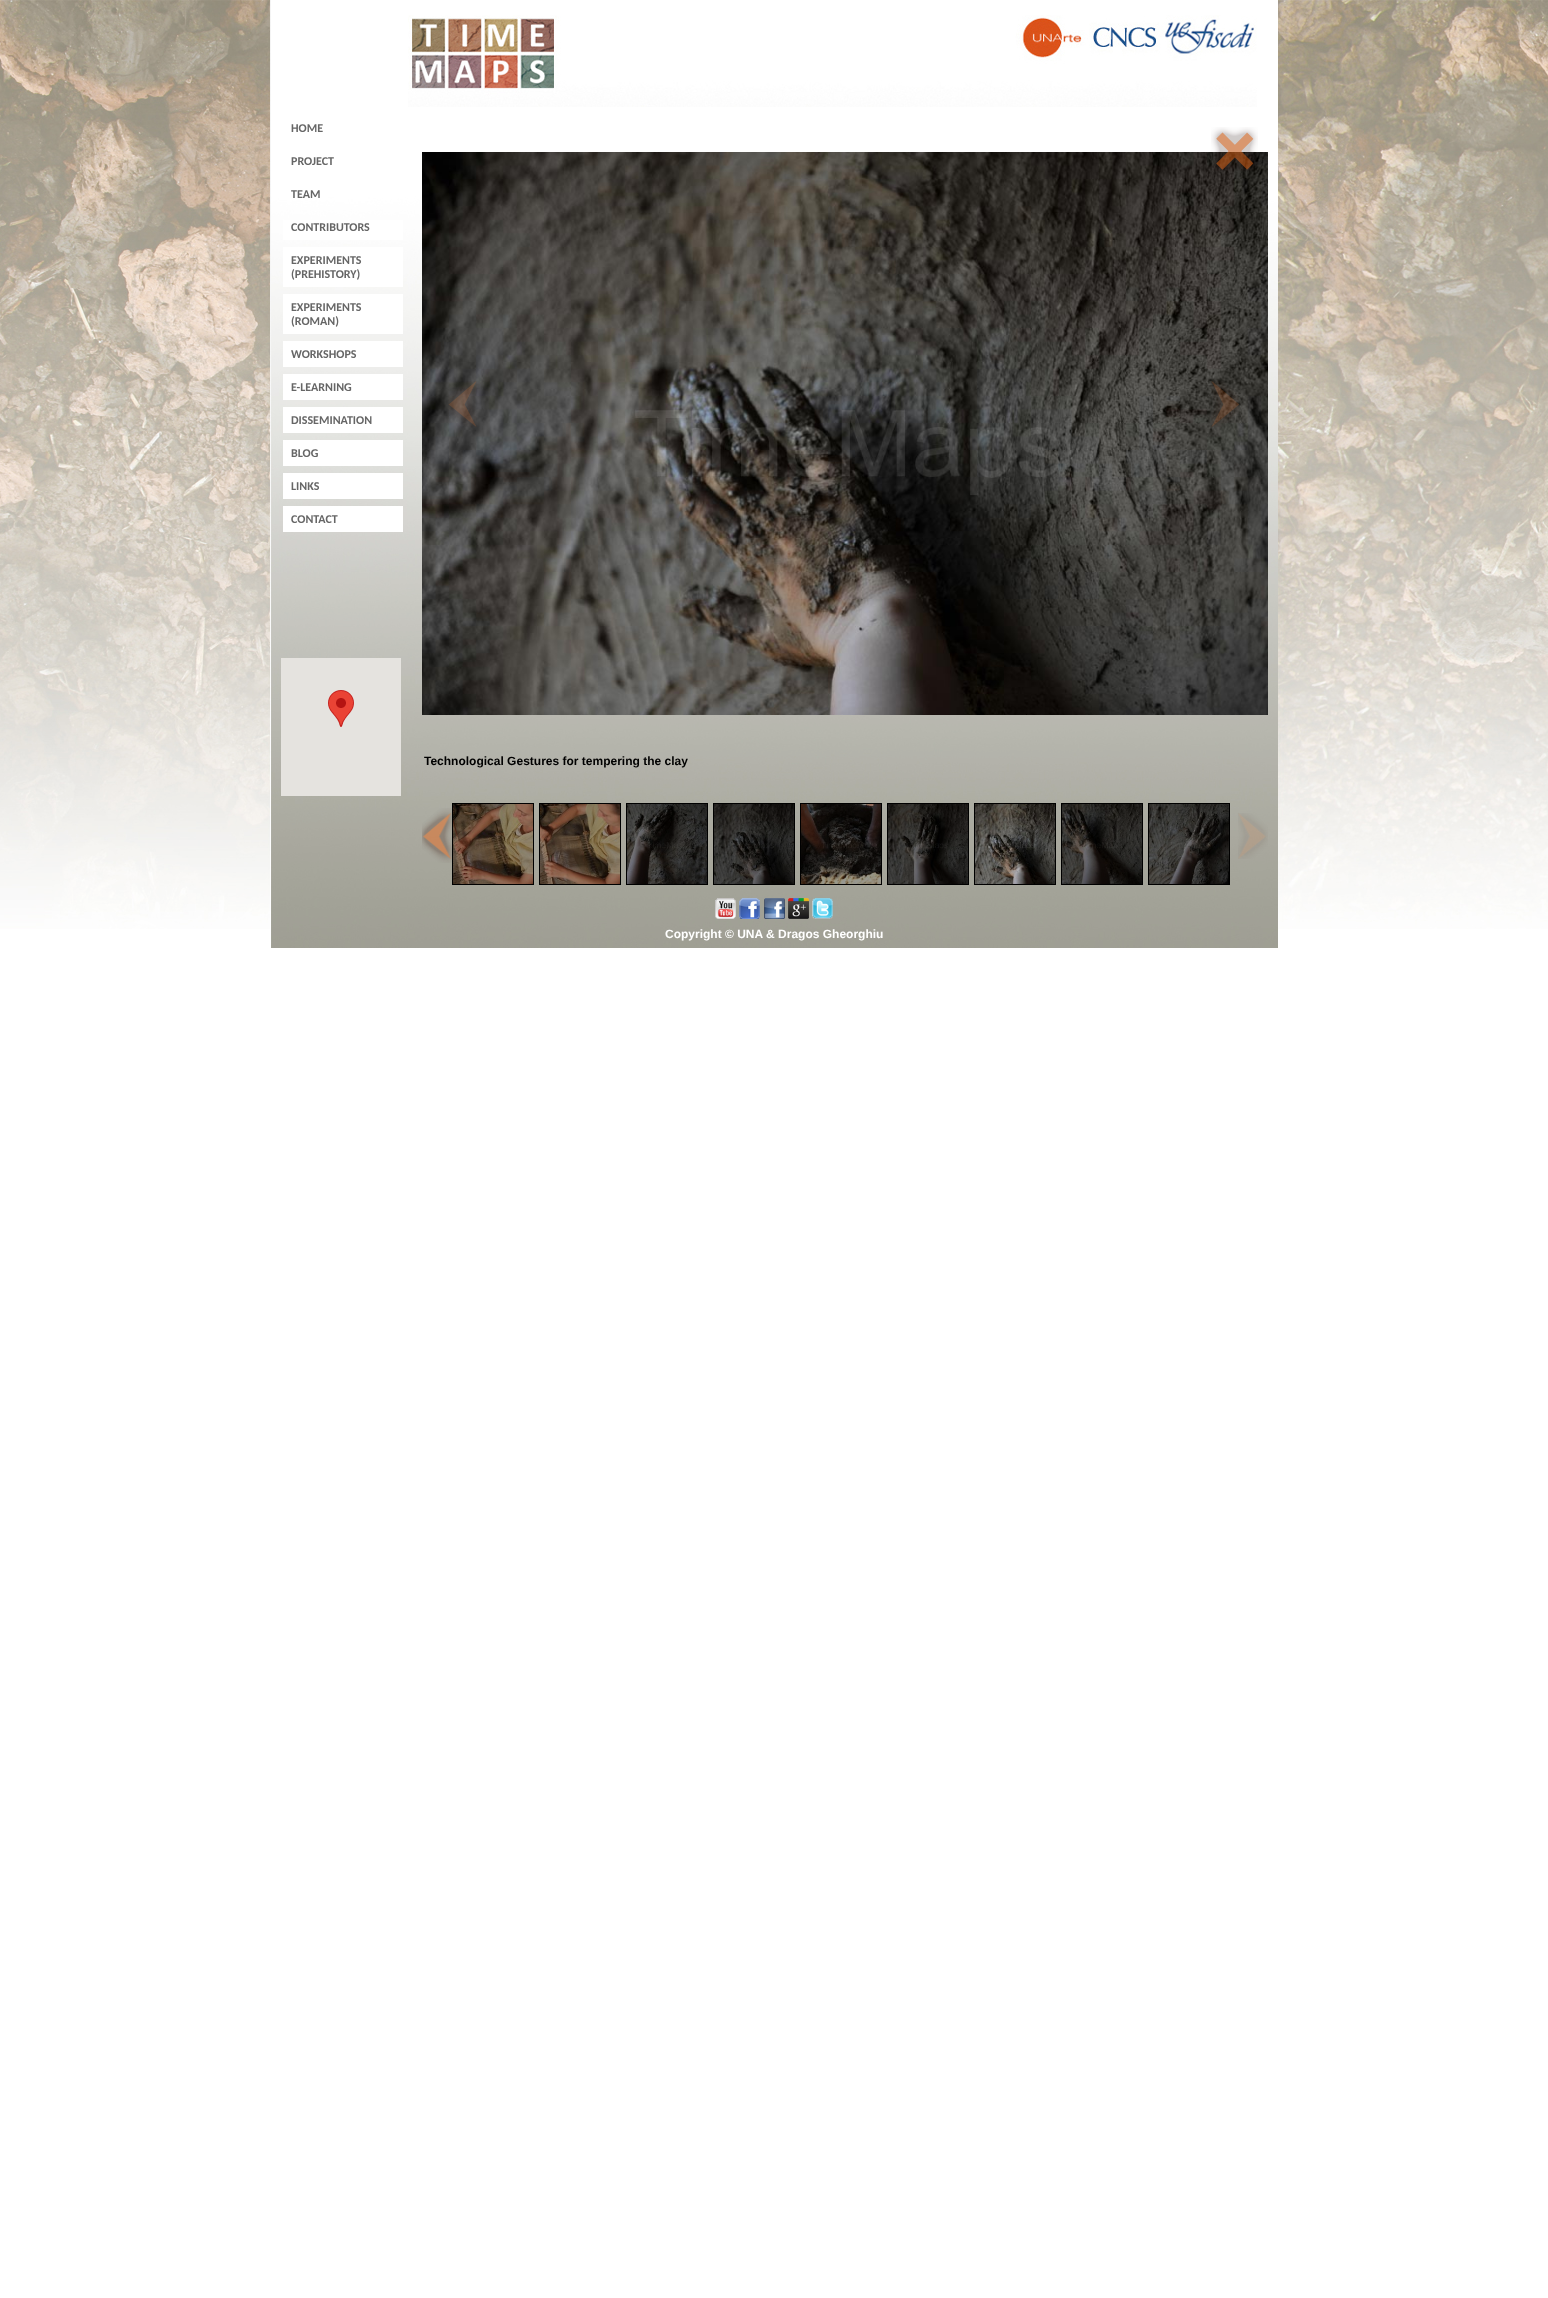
<svg xmlns="http://www.w3.org/2000/svg" width="1548" height="2298" viewBox="0 0 1548 2298">
  <style>
    .t1 { font: bold 12px Carlito; fill: #666; }
    .t2 { font: bold 12px Liberation Sans; fill: #000; }
    .t3 { font: bold 12px Liberation Sans; fill: #fff; }
  </style>
  <rect width="100%" height="100%" fill="#fff"/>
  <image x="0" y="0" width="1548" height="929" href="images/1.png"/>
  <rect x="271" y="0" width="1007" height="108" fill="#fff"/>
  <image x="408" y="15" width="849" height="92" href="images/2.png"/>
  <image x="271" y="108" width="1007" height="840" href="images/3.png"/>
  <text x="291" y="132" class="t1">HOME</text>
  <text x="291" y="165" class="t1">PROJECT</text>
  <text x="291" y="198" class="t1">TEAM</text>
  <rect x="283" y="220" width="120" height="20" fill="#fff"/>
  <text x="291" y="231" class="t1">CONTRIBUTORS</text>
  <rect x="283" y="247" width="120" height="40" fill="#fff"/>
  <text x="291" y="264" class="t1">EXPERIMENTS</text>
  <text x="291" y="278" class="t1">(PREHISTORY)</text>
  <rect x="283" y="294" width="120" height="40" fill="#fff"/>
  <text x="291" y="311" class="t1">EXPERIMENTS</text>
  <text x="291" y="325" class="t1">(ROMAN)</text>
  <rect x="283" y="341" width="120" height="26" fill="#fff"/>
  <text x="291" y="358" class="t1">WORKSHOPS</text>
  <rect x="283" y="374" width="120" height="26" fill="#fff"/>
  <text x="291" y="391" class="t1">E-LEARNING</text>
  <rect x="283" y="407" width="120" height="26" fill="#fff"/>
  <text x="291" y="424" class="t1">DISSEMINATION</text>
  <rect x="283" y="440" width="120" height="26" fill="#fff"/>
  <text x="291" y="457" class="t1">BLOG</text>
  <rect x="283" y="473" width="120" height="26" fill="#fff"/>
  <text x="291" y="490" class="t1">LINKS</text>
  <rect x="283" y="506" width="120" height="26" fill="#fff"/>
  <text x="291" y="523" class="t1">CONTACT</text>
  <rect x="281" y="658" width="120" height="138" fill="#e5e3df"/>
  <image x="328" y="690" width="26" height="37" href="images/4.png"/>
  <image x="422" y="152" width="846" height="563" href="images/6.png"/>
  <image x="1211" y="127" width="47" height="44" href="images/5.png"/>
  <image x="448" y="381" width="29" height="46" href="images/7.png"/>
  <image x="1211" y="381" width="28" height="46" href="images/8.png"/>
  <text x="424" y="765" class="t2">Technological Gestures for tempering the clay</text>
  <image x="422" y="808" width="30" height="55" href="images/9.png"/>
  <rect x="452" y="803" width="82" height="82" fill="#000"/>
  <image x="453" y="804" width="80" height="80" href="images/10.png"/>
  <rect x="539" y="803" width="82" height="82" fill="#000"/>
  <image x="540" y="804" width="80" height="80" href="images/11.png"/>
  <rect x="626" y="803" width="82" height="82" fill="#000"/>
  <image x="627" y="804" width="80" height="80" href="images/12.png"/>
  <rect x="713" y="803" width="82" height="82" fill="#000"/>
  <image x="714" y="804" width="80" height="80" href="images/13.png"/>
  <rect x="800" y="803" width="82" height="82" fill="#000"/>
  <image x="801" y="804" width="80" height="80" href="images/14.png"/>
  <rect x="887" y="803" width="82" height="82" fill="#000"/>
  <image x="888" y="804" width="80" height="80" href="images/15.png"/>
  <rect x="974" y="803" width="82" height="82" fill="#000"/>
  <image x="975" y="804" width="80" height="80" href="images/16.png"/>
  <rect x="1061" y="803" width="82" height="82" fill="#000"/>
  <image x="1062" y="804" width="80" height="80" href="images/17.png"/>
  <rect x="1148" y="803" width="82" height="82" fill="#000"/>
  <image x="1149" y="804" width="80" height="80" href="images/18.png"/>
  <image x="1238" y="813" width="30" height="46" href="images/19.png"/>
  <image x="715" y="898" width="21" height="21" href="images/20.png"/>
  <image x="739" y="898" width="21" height="21" href="images/21.png"/>
  <image x="764" y="898" width="21" height="21" href="images/22.png"/>
  <image x="788" y="898" width="21" height="21" href="images/23.png"/>
  <image x="812" y="898" width="21" height="21" href="images/24.png"/>
  <text x="665" y="938" class="t3">Copyright © UNA &amp; Dragos Gheorghiu</text>
</svg>
